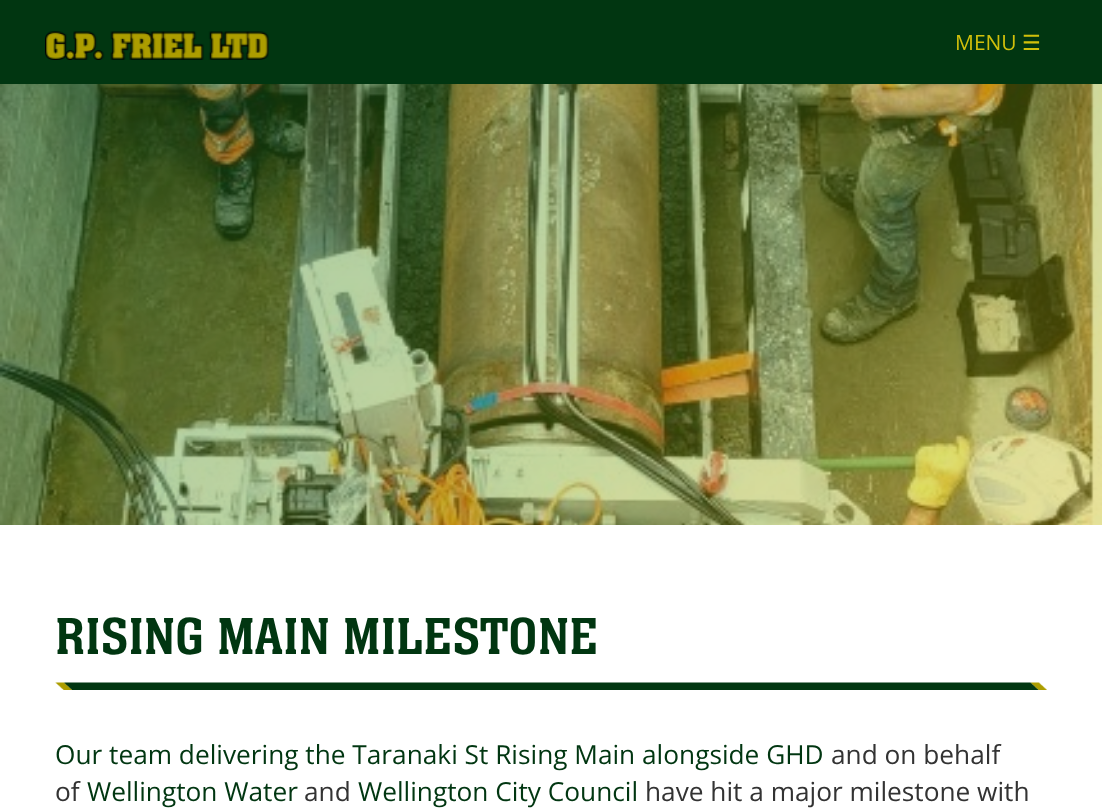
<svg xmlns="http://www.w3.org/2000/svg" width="1102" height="811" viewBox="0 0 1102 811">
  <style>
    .t1 { font: 21px Open Sans; fill: #d0bf0b; }
    .t2 { font: 21px DejaVu Sans; fill: #d0bf0b; }
    .t3 { font: 54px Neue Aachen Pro; fill: #013611; }
    .t4 { font: 26.25px Open Sans; fill: #013611; }
    .t5 { font: 26.25px Open Sans; fill: #333; }
  </style>
  <rect width="100%" height="100%" fill="#fff"/>
  <rect x="0" y="0" width="1102" height="84" fill="#013611"/>
  <image x="45" y="31" width="224" height="29" href="images/1.png"/>
  <text x="955" y="50" class="t1">MENU</text>
  <text x="1022" y="50" class="t2">☰</text>
  <image x="0" y="84" width="1102" height="441" href="images/2.png"/>
  <text x="55" y="654" class="t3">RISING MAIN MILESTONE</text>
  <image x="55" y="682" width="992" height="8" href="images/3.png"/>
  <text x="55" y="764" class="t4">Our team delivering the Taranaki St Rising Main alongside GHD</text>
  <text x="831" y="764" class="t5">and on behalf</text>
  <text x="55" y="801" class="t5">of</text>
  <text x="87" y="801" class="t4">Wellington Water</text>
  <text x="304" y="801" class="t5">and</text>
  <text x="358" y="801" class="t4">Wellington City Council</text>
  <text x="645" y="801" class="t5">have hit a major milestone with</text>
</svg>
